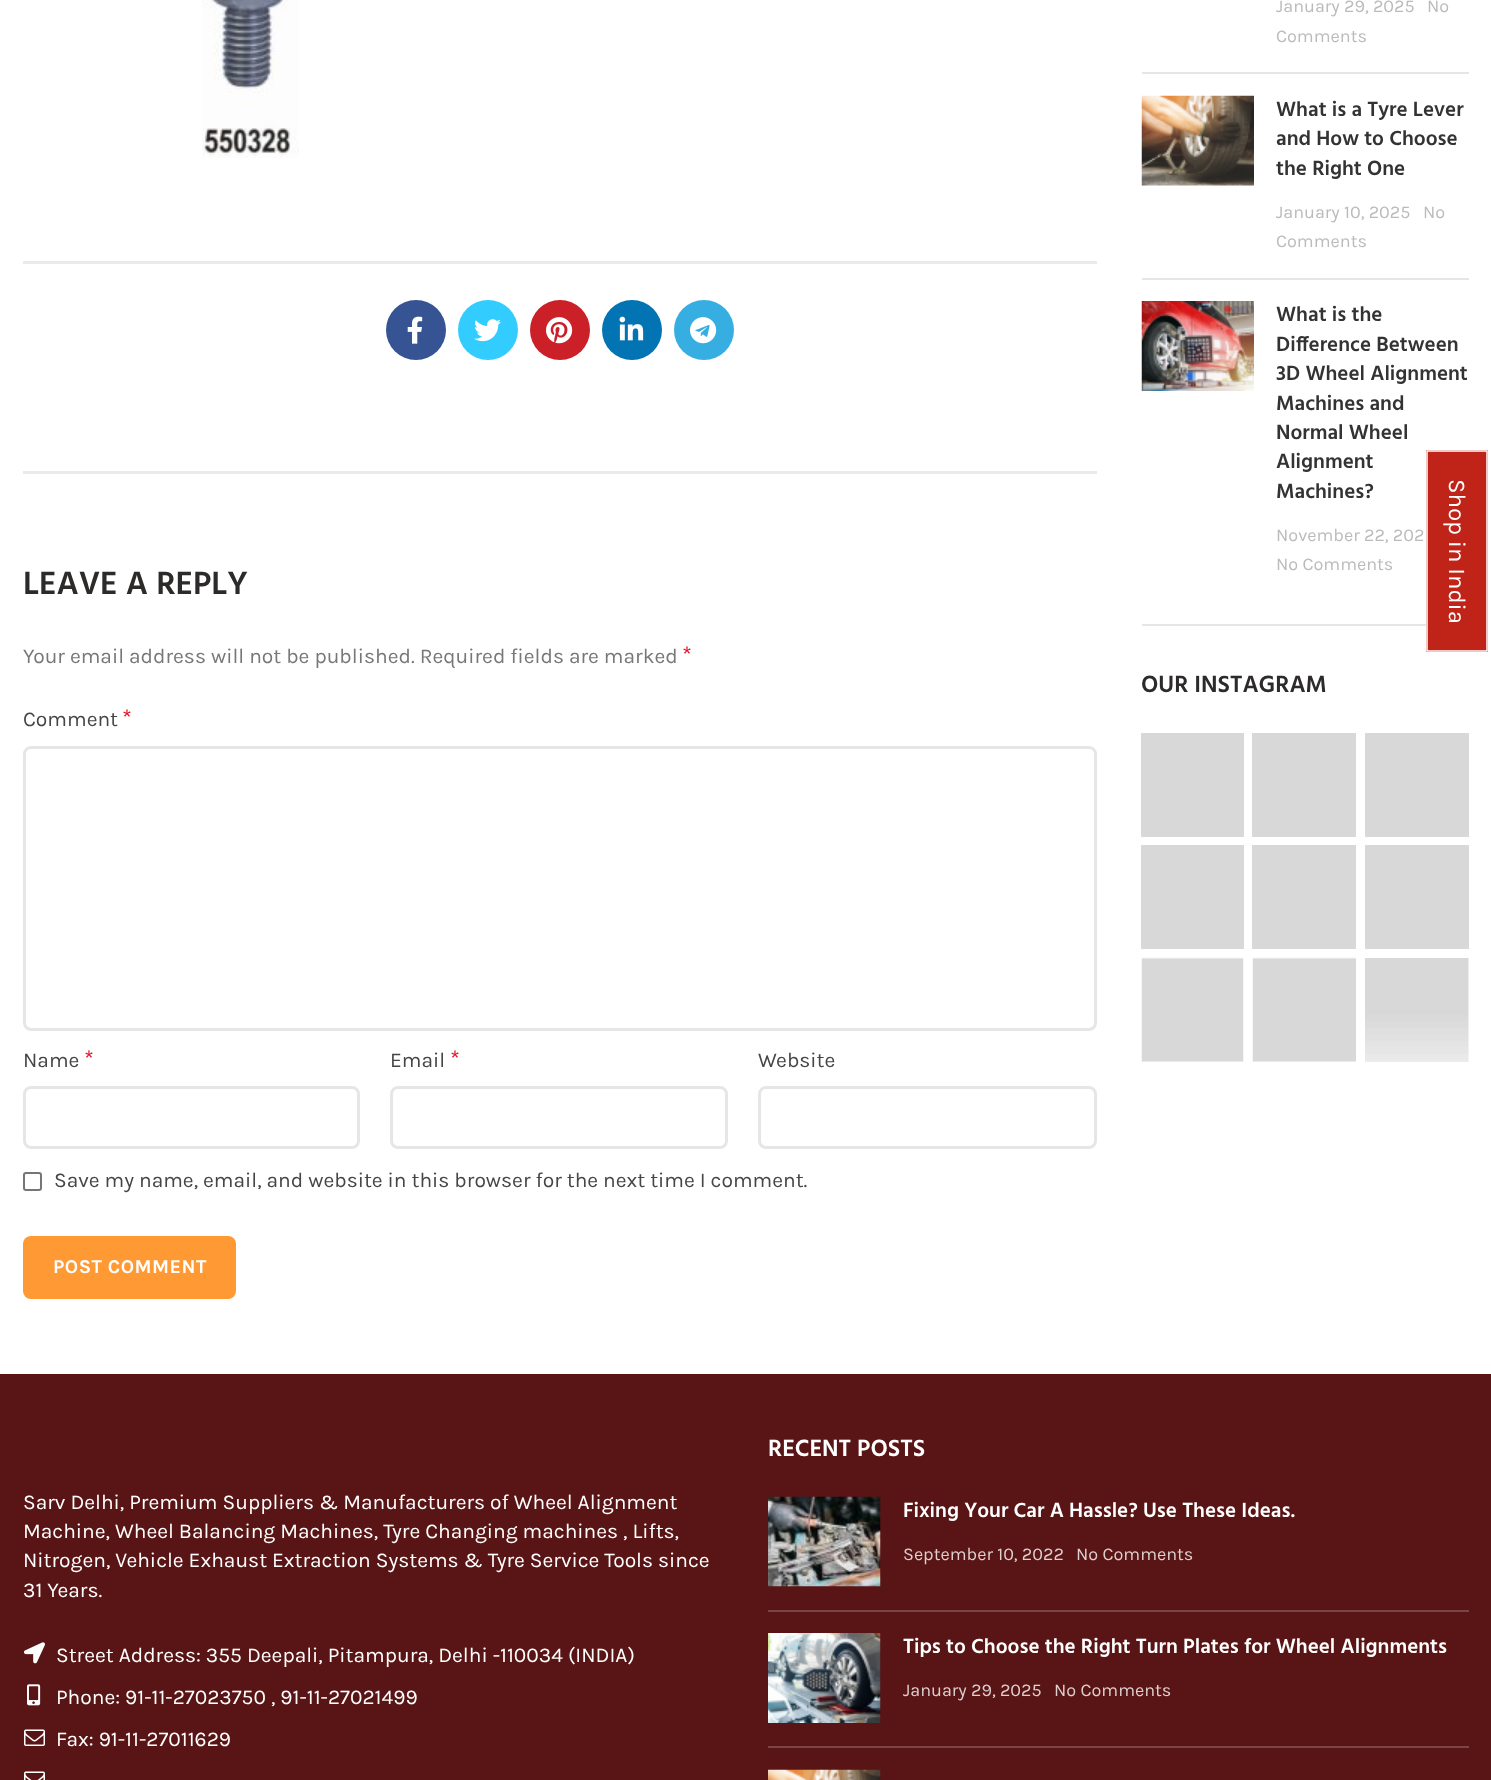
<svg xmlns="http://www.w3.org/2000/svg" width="1491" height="1780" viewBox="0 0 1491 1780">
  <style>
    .t1 { font: 18px Karla; fill: #bbb; }
    .t2 { font: 600 21px Hind; fill: #333; }
    .t3 { font: 600 24px Hind; fill: #2d2a2a; }
    .t4 { font: 600 33px Hind; fill: #2d2a2a; }
    .t5 { font: 21px Karla; fill: #777; }
    .t6 { font: 24px Karla; fill: #e01020; }
    .t7 { font: 21px Karla; fill: #464646; }
    .t8 { font: bold 19.5px Karla; letter-spacing: 0.5px; fill: #fff; }
    .t9 { font: 21px Karla; fill: #fff; }
    .t10 { font: 600 24px Hind; fill: #fff; }
    .t11 { font: 600 21px Hind; fill: #fff; }
    .t12 { font: 18px Karla; fill: #ded0d0; }
    .t13 { font: 24px Karla; fill: #fff; }
  </style>
  <rect width="100%" height="100%" fill="#fff"/>
  <rect x="1142" y="624" width="284" height="2" fill="#e6e6e6"/>
  <rect x="1142" y="72" width="327" height="2" fill="#e6e6e6"/>
  <text x="1276" y="12" class="t1">January 29, 2025</text>
  <text x="1427" y="12" class="t1">No</text>
  <text x="1276" y="42" class="t1">Comments</text>
  <rect x="1142" y="278" width="327" height="2" fill="#e6e6e6"/>
  <image x="1141" y="95" width="113" height="91" href="images/1.png"/>
  <text x="1276" y="116" class="t2">What is a Tyre Lever</text>
  <text x="1276" y="145" class="t2">and How to Choose</text>
  <text x="1276" y="175" class="t2">the Right One</text>
  <text x="1276" y="218" class="t1">January 10, 2025</text>
  <text x="1423" y="218" class="t1">No</text>
  <text x="1276" y="247" class="t1">Comments</text>
  <image x="1141" y="301" width="113" height="90" href="images/2.png"/>
  <text x="1276" y="321" class="t2">What is the</text>
  <text x="1276" y="351" class="t2">Difference Between</text>
  <text x="1276" y="380" class="t2">3D Wheel Alignment</text>
  <text x="1276" y="410" class="t2">Machines and</text>
  <text x="1276" y="439" class="t2">Normal Wheel</text>
  <text x="1276" y="468" class="t2">Alignment</text>
  <text x="1276" y="498" class="t2">Machines?</text>
  <text x="1276" y="541" class="t1">November 22, 202</text>
  <text x="1276" y="570" class="t1">No Comments</text>
  <text x="1141" y="692" class="t3">OUR INSTAGRAM</text>
  <rect x="1141" y="733" width="103" height="104" fill="#d8d8d8"/>
  <rect x="1252" y="733" width="104" height="104" fill="#d8d8d8"/>
  <rect x="1365" y="733" width="104" height="104" fill="#d8d8d8"/>
  <rect x="1141" y="845" width="103" height="104" fill="#d8d8d8"/>
  <rect x="1252" y="845" width="104" height="104" fill="#d8d8d8"/>
  <rect x="1365" y="845" width="104" height="104" fill="#d8d8d8"/>
  <image x="1141" y="957" width="103" height="105" href="images/3.png"/>
  <image x="1252" y="957" width="104" height="105" href="images/4.png"/>
  <image x="1365" y="958" width="104" height="104" href="images/5.png"/>
  <image x="202" y="0" width="97" height="158" href="images/6.png"/>
  <rect x="23" y="261" width="1074" height="3" fill="#eaeaea"/>
  <circle cx="416" cy="330" r="30" fill="#365493"/>
  <image x="407" y="316" width="16" height="28" href="images/7.png"/>
  <circle cx="488" cy="330" r="30" fill="#3cf"/>
  <image x="474" y="319" width="27" height="23" href="images/8.png"/>
  <circle cx="560" cy="330" r="30" fill="#cb2027"/>
  <image x="546" y="317" width="27" height="27" href="images/9.png"/>
  <circle cx="632" cy="330" r="30" fill="#0274b3"/>
  <image x="619" y="316" width="25" height="25" href="images/10.png"/>
  <circle cx="704" cy="330" r="30" fill="#37aee2"/>
  <image x="690" y="317" width="27" height="27" href="images/11.png"/>
  <rect x="23" y="471" width="1074" height="3" fill="#eaeaea"/>
  <text x="23" y="594" class="t4">LEAVE A REPLY</text>
  <text x="23" y="663" class="t5">Your email address will not be published. Required fields are marked</text>
  <text x="682" y="663" class="t6">*</text>
  <text x="23" y="726" class="t7">Comment</text>
  <text x="122" y="726" class="t6">*</text>
  <rect x="24.5" y="747.5" width="1071" height="282" rx="6.5" fill="none" stroke="#e6e6e6" stroke-width="3"/>
  <text x="23" y="1067" class="t7">Name</text>
  <text x="84" y="1067" class="t6">*</text>
  <rect x="24.5" y="1087.5" width="334" height="60" rx="6.5" fill="none" stroke="#e6e6e6" stroke-width="3"/>
  <text x="390" y="1067" class="t7">Email</text>
  <text x="450" y="1067" class="t6">*</text>
  <rect x="391.5" y="1087.5" width="335" height="60" rx="6.5" fill="none" stroke="#e6e6e6" stroke-width="3"/>
  <text x="758" y="1067" class="t7">Website</text>
  <rect x="759.5" y="1087.5" width="336" height="60" rx="6.5" fill="none" stroke="#e6e6e6" stroke-width="3"/>
  <rect x="24" y="1173" width="17" height="17" rx="2" fill="none" stroke="#767676" stroke-width="2"/>
  <text x="54" y="1187" class="t7">Save my name, email, and website in this browser for the next time I comment.</text>
  <rect x="23" y="1236" width="213" height="63" rx="8" fill="#f93"/>
  <text x="53" y="1273" class="t8">POST COMMENT</text>
  <rect x="0" y="1374" width="1491" height="406" fill="#591515"/>
  <text x="23" y="1509" class="t9">Sarv Delhi, Premium Suppliers &amp; Manufacturers of Wheel Alignment</text>
  <text x="23" y="1538" class="t9">Machine, Wheel Balancing Machines, Tyre Changing machines , Lifts,</text>
  <text x="23" y="1567" class="t9">Nitrogen, Vehicle Exhaust Extraction Systems &amp; Tyre Service Tools since</text>
  <text x="23" y="1597" class="t9">31 Years.</text>
  <image x="24" y="1642" width="21" height="22" href="images/12.png"/>
  <text x="56" y="1662" class="t9">Street Address: 355 Deepali, Pitampura, Delhi -110034 (INDIA)</text>
  <image x="27" y="1684" width="14" height="22" href="images/13.png"/>
  <text x="56" y="1704" class="t9">Phone: 91-11-27023750 , 91-11-27021499</text>
  <image x="24" y="1729" width="21" height="17" href="images/14.png"/>
  <text x="56" y="1746" class="t9">Fax: 91-11-27011629</text>
  <image x="24" y="1771" width="21" height="9" href="images/15.png"/>
  <text x="768" y="1456" class="t10">RECENT POSTS</text>
  <rect x="768" y="1610" width="701" height="2" fill="#7a4444"/>
  <image x="768" y="1496" width="113" height="91" href="images/16.png"/>
  <text x="903" y="1517" class="t11">Fixing Your Car A Hassle? Use These Ideas.</text>
  <text x="903" y="1560" class="t12">September 10, 2022</text>
  <text x="1076" y="1560" class="t12">No Comments</text>
  <rect x="768" y="1746" width="701" height="2" fill="#7a4444"/>
  <image x="768" y="1633" width="113" height="90" href="images/17.png"/>
  <text x="903" y="1653" class="t11">Tips to Choose the Right Turn Plates for Wheel Alignments</text>
  <text x="903" y="1696" class="t12">January 29, 2025</text>
  <text x="1054" y="1696" class="t12">No Comments</text>
  <image x="768" y="1769" width="113" height="11" href="images/18.png"/>
  <rect x="1426" y="450" width="62" height="202" fill="#c02419"/>
  <path d="M1487 451V651H1427V451Z" fill="none" stroke="#fff" stroke-width="1.5"/>
  <text x="1449" y="479" transform="rotate(90 1449 479)" class="t13">Shop in India</text>
</svg>
